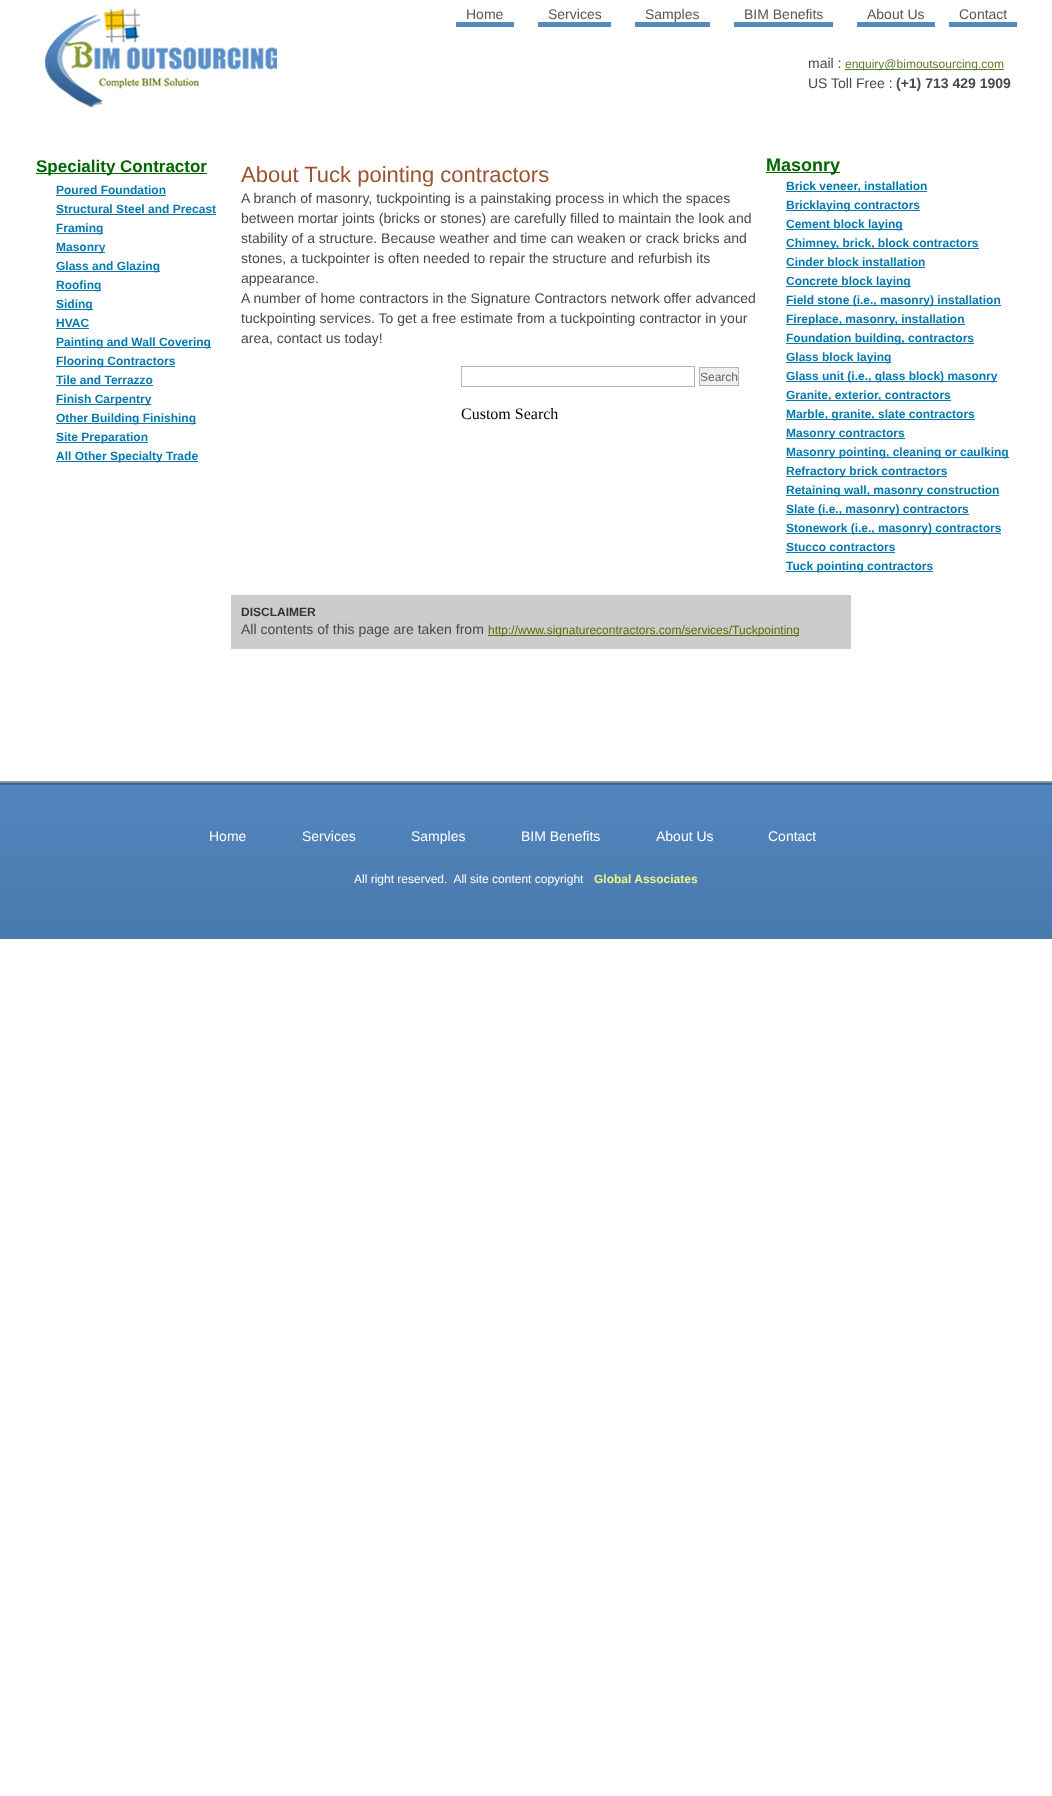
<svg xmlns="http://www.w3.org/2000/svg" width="1052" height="1796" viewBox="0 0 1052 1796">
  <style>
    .t1 { font: 14px Liberation Sans; fill: #575757; }
    .t2 { font: 14px Liberation Sans; fill: #494949; }
    .t3 { font: 12px Liberation Sans; fill: #5c7c29; }
    .t4 { font: bold 14px Liberation Sans; fill: #494949; }
    .t5 { font: bold 17px Liberation Sans; fill: #060; }
    .t6 { font: bold 12px Liberation Sans; fill: #0679ad; }
    .t7 { font: 22px Liberation Sans; fill: #9b532f; }
    .t8 { font: 12px Liberation Sans; fill: #666; }
    .t9 { font: 16px Liberation Serif; fill: #000; }
    .t10 { font: bold 18px Liberation Sans; fill: #060; }
    .t11 { font: bold 12px Liberation Sans; fill: #333; }
    .t12 { font: 12px Liberation Sans; fill: #5e6d04; }
    .t13 { font: 14px Liberation Sans; fill: #fff; }
    .t14 { font: 12px Liberation Sans; fill: #fff; }
    .t15 { font: bold 12px Liberation Sans; fill: #e7f78a; }
  </style>
  <rect width="100%" height="100%" fill="#fff"/>
  <image x="39" y="8" width="240" height="100" href="images/1.png"/>
  <text x="466" y="19" class="t1">Home</text>
  <rect x="456" y="22" width="58" height="5" fill="#558ac1"/>
  <text x="548" y="19" class="t1">Services</text>
  <rect x="538" y="22" width="73" height="5" fill="#558ac1"/>
  <text x="645" y="19" class="t1">Samples</text>
  <rect x="635" y="22" width="75" height="5" fill="#558ac1"/>
  <text x="744" y="19" class="t1">BIM Benefits</text>
  <rect x="734" y="22" width="99" height="5" fill="#558ac1"/>
  <text x="867" y="19" class="t1">About Us</text>
  <rect x="857" y="22" width="78" height="5" fill="#558ac1"/>
  <text x="959" y="19" class="t1">Contact</text>
  <rect x="949" y="22" width="68" height="5" fill="#558ac1"/>
  <text x="808" y="68" class="t2">mail :</text>
  <rect x="845" y="69" width="159" height="1" fill="#5c7c29"/>
  <text x="845" y="68" class="t3">enquiry@bimoutsourcing.com</text>
  <text x="808" y="88" class="t2">US Toll Free :</text>
  <text x="896" y="88" class="t4">(+1) 713 429 1909</text>
  <rect x="36" y="173" width="171" height="1" fill="#060"/>
  <text x="36" y="172" class="t5">Speciality Contractor</text>
  <text x="56" y="194" class="t6">Poured Foundation</text>
  <rect x="56" y="195" width="110" height="1" fill="#0679ad"/>
  <text x="56" y="213" class="t6">Structural Steel and Precast</text>
  <rect x="56" y="214" width="160" height="1" fill="#0679ad"/>
  <rect x="56" y="233" width="47" height="1" fill="#0679ad"/>
  <text x="56" y="232" class="t6">Framing</text>
  <rect x="56" y="252" width="49" height="1" fill="#0679ad"/>
  <text x="56" y="251" class="t6">Masonry</text>
  <rect x="56" y="271" width="104" height="1" fill="#0679ad"/>
  <text x="56" y="270" class="t6">Glass and Glazing</text>
  <rect x="56" y="290" width="45" height="1" fill="#0679ad"/>
  <text x="56" y="289" class="t6">Roofing</text>
  <rect x="56" y="309" width="37" height="1" fill="#0679ad"/>
  <text x="56" y="308" class="t6">Siding</text>
  <text x="56" y="327" class="t6">HVAC</text>
  <rect x="56" y="328" width="33" height="1" fill="#0679ad"/>
  <rect x="56" y="347" width="155" height="1" fill="#0679ad"/>
  <text x="56" y="346" class="t6">Painting and Wall Covering</text>
  <rect x="56" y="366" width="119" height="1" fill="#0679ad"/>
  <text x="56" y="365" class="t6">Flooring Contractors</text>
  <text x="56" y="384" class="t6">Tile and Terrazzo</text>
  <rect x="56" y="385" width="97" height="1" fill="#0679ad"/>
  <rect x="56" y="404" width="95" height="1" fill="#0679ad"/>
  <text x="56" y="403" class="t6">Finish Carpentry</text>
  <rect x="56" y="423" width="140" height="1" fill="#0679ad"/>
  <text x="56" y="422" class="t6">Other Building Finishing</text>
  <rect x="56" y="442" width="92" height="1" fill="#0679ad"/>
  <text x="56" y="441" class="t6">Site Preparation</text>
  <rect x="56" y="461" width="142" height="1" fill="#0679ad"/>
  <text x="56" y="460" class="t6">All Other Specialty Trade</text>
  <text x="241" y="182" class="t7">About Tuck pointing contractors</text>
  <text x="241" y="203" class="t2">A branch of masonry, tuckpointing is a painstaking process in which the spaces</text>
  <text x="241" y="223" class="t2">between mortar joints (bricks or stones) are carefully filled to maintain the look and</text>
  <text x="241" y="243" class="t2">stability of a structure. Because weather and time can weaken or crack bricks and</text>
  <text x="241" y="263" class="t2">stones, a tuckpointer is often needed to repair the structure and refurbish its</text>
  <text x="241" y="283" class="t2">appearance.</text>
  <text x="241" y="303" class="t2">A number of home contractors in the Signature Contractors network offer advanced</text>
  <text x="241" y="323" class="t2">tuckpointing services. To get a free estimate from a tuckpointing contractor in your</text>
  <text x="241" y="343" class="t2">area, contact us today!</text>
  <rect x="461.5" y="366.5" width="233" height="20" fill="none" stroke="#b5b5b5"/>
  <rect x="699.5" y="367.5" width="39" height="18" fill="#efefef" stroke="#b5b5b5"/>
  <text x="700" y="381" class="t8">Search</text>
  <text x="461" y="419" class="t9">Custom Search</text>
  <rect x="766" y="172" width="74" height="1" fill="#060"/>
  <text x="766" y="171" class="t10">Masonry</text>
  <rect x="786" y="191" width="141" height="1" fill="#0679ad"/>
  <text x="786" y="190" class="t6">Brick veneer, installation</text>
  <rect x="786" y="210" width="134" height="1" fill="#0679ad"/>
  <text x="786" y="209" class="t6">Bricklaying contractors</text>
  <rect x="786" y="229" width="117" height="1" fill="#0679ad"/>
  <text x="786" y="228" class="t6">Cement block laying</text>
  <rect x="786" y="248" width="193" height="1" fill="#0679ad"/>
  <text x="786" y="247" class="t6">Chimney, brick, block contractors</text>
  <text x="786" y="266" class="t6">Cinder block installation</text>
  <rect x="786" y="267" width="139" height="1" fill="#0679ad"/>
  <rect x="786" y="286" width="125" height="1" fill="#0679ad"/>
  <text x="786" y="285" class="t6">Concrete block laying</text>
  <rect x="786" y="305" width="215" height="1" fill="#0679ad"/>
  <text x="786" y="304" class="t6">Field stone (i.e., masonry) installation</text>
  <rect x="786" y="324" width="179" height="1" fill="#0679ad"/>
  <text x="786" y="323" class="t6">Fireplace, masonry, installation</text>
  <rect x="786" y="343" width="188" height="1" fill="#0679ad"/>
  <text x="786" y="342" class="t6">Foundation building, contractors</text>
  <rect x="786" y="362" width="105" height="1" fill="#0679ad"/>
  <text x="786" y="361" class="t6">Glass block laying</text>
  <rect x="786" y="381" width="211" height="1" fill="#0679ad"/>
  <text x="786" y="380" class="t6">Glass unit (i.e., glass block) masonry</text>
  <rect x="786" y="400" width="165" height="1" fill="#0679ad"/>
  <text x="786" y="399" class="t6">Granite, exterior, contractors</text>
  <rect x="786" y="419" width="189" height="1" fill="#0679ad"/>
  <text x="786" y="418" class="t6">Marble, granite, slate contractors</text>
  <rect x="786" y="438" width="119" height="1" fill="#0679ad"/>
  <text x="786" y="437" class="t6">Masonry contractors</text>
  <rect x="786" y="457" width="223" height="1" fill="#0679ad"/>
  <text x="786" y="456" class="t6">Masonry pointing, cleaning or caulking</text>
  <rect x="786" y="476" width="161" height="1" fill="#0679ad"/>
  <text x="786" y="475" class="t6">Refractory brick contractors</text>
  <rect x="786" y="495" width="213" height="1" fill="#0679ad"/>
  <text x="786" y="494" class="t6">Retaining wall, masonry construction</text>
  <rect x="786" y="514" width="183" height="1" fill="#0679ad"/>
  <text x="786" y="513" class="t6">Slate (i.e., masonry) contractors</text>
  <rect x="786" y="533" width="215" height="1" fill="#0679ad"/>
  <text x="786" y="532" class="t6">Stonework (i.e., masonry) contractors</text>
  <text x="786" y="551" class="t6">Stucco contractors</text>
  <rect x="786" y="552" width="109" height="1" fill="#0679ad"/>
  <rect x="786" y="571" width="147" height="1" fill="#0679ad"/>
  <text x="786" y="570" class="t6">Tuck pointing contractors</text>
  <rect x="231" y="595" width="620" height="54" fill="#ccc"/>
  <text x="241" y="616" class="t11">DISCLAIMER</text>
  <text x="241" y="634" class="t2">All contents of this page are taken from</text>
  <rect x="488" y="635" width="311" height="1" fill="#5e6d04"/>
  <text x="488" y="634" class="t12">http://www.signaturecontractors.com/services/Tuckpointing</text>
  <image x="0" y="781" width="1052" height="158" href="images/2.png"/>
  <text x="209" y="841" class="t13">Home</text>
  <text x="302" y="841" class="t13">Services</text>
  <text x="411" y="841" class="t13">Samples</text>
  <text x="521" y="841" class="t13">BIM Benefits</text>
  <text x="656" y="841" class="t13">About Us</text>
  <text x="768" y="841" class="t13">Contact</text>
  <text x="354" y="883" class="t14" xml:space="preserve">All right reserved.  All site content copyright</text>
  <text x="594" y="883" class="t15">Global Associates</text>
</svg>
